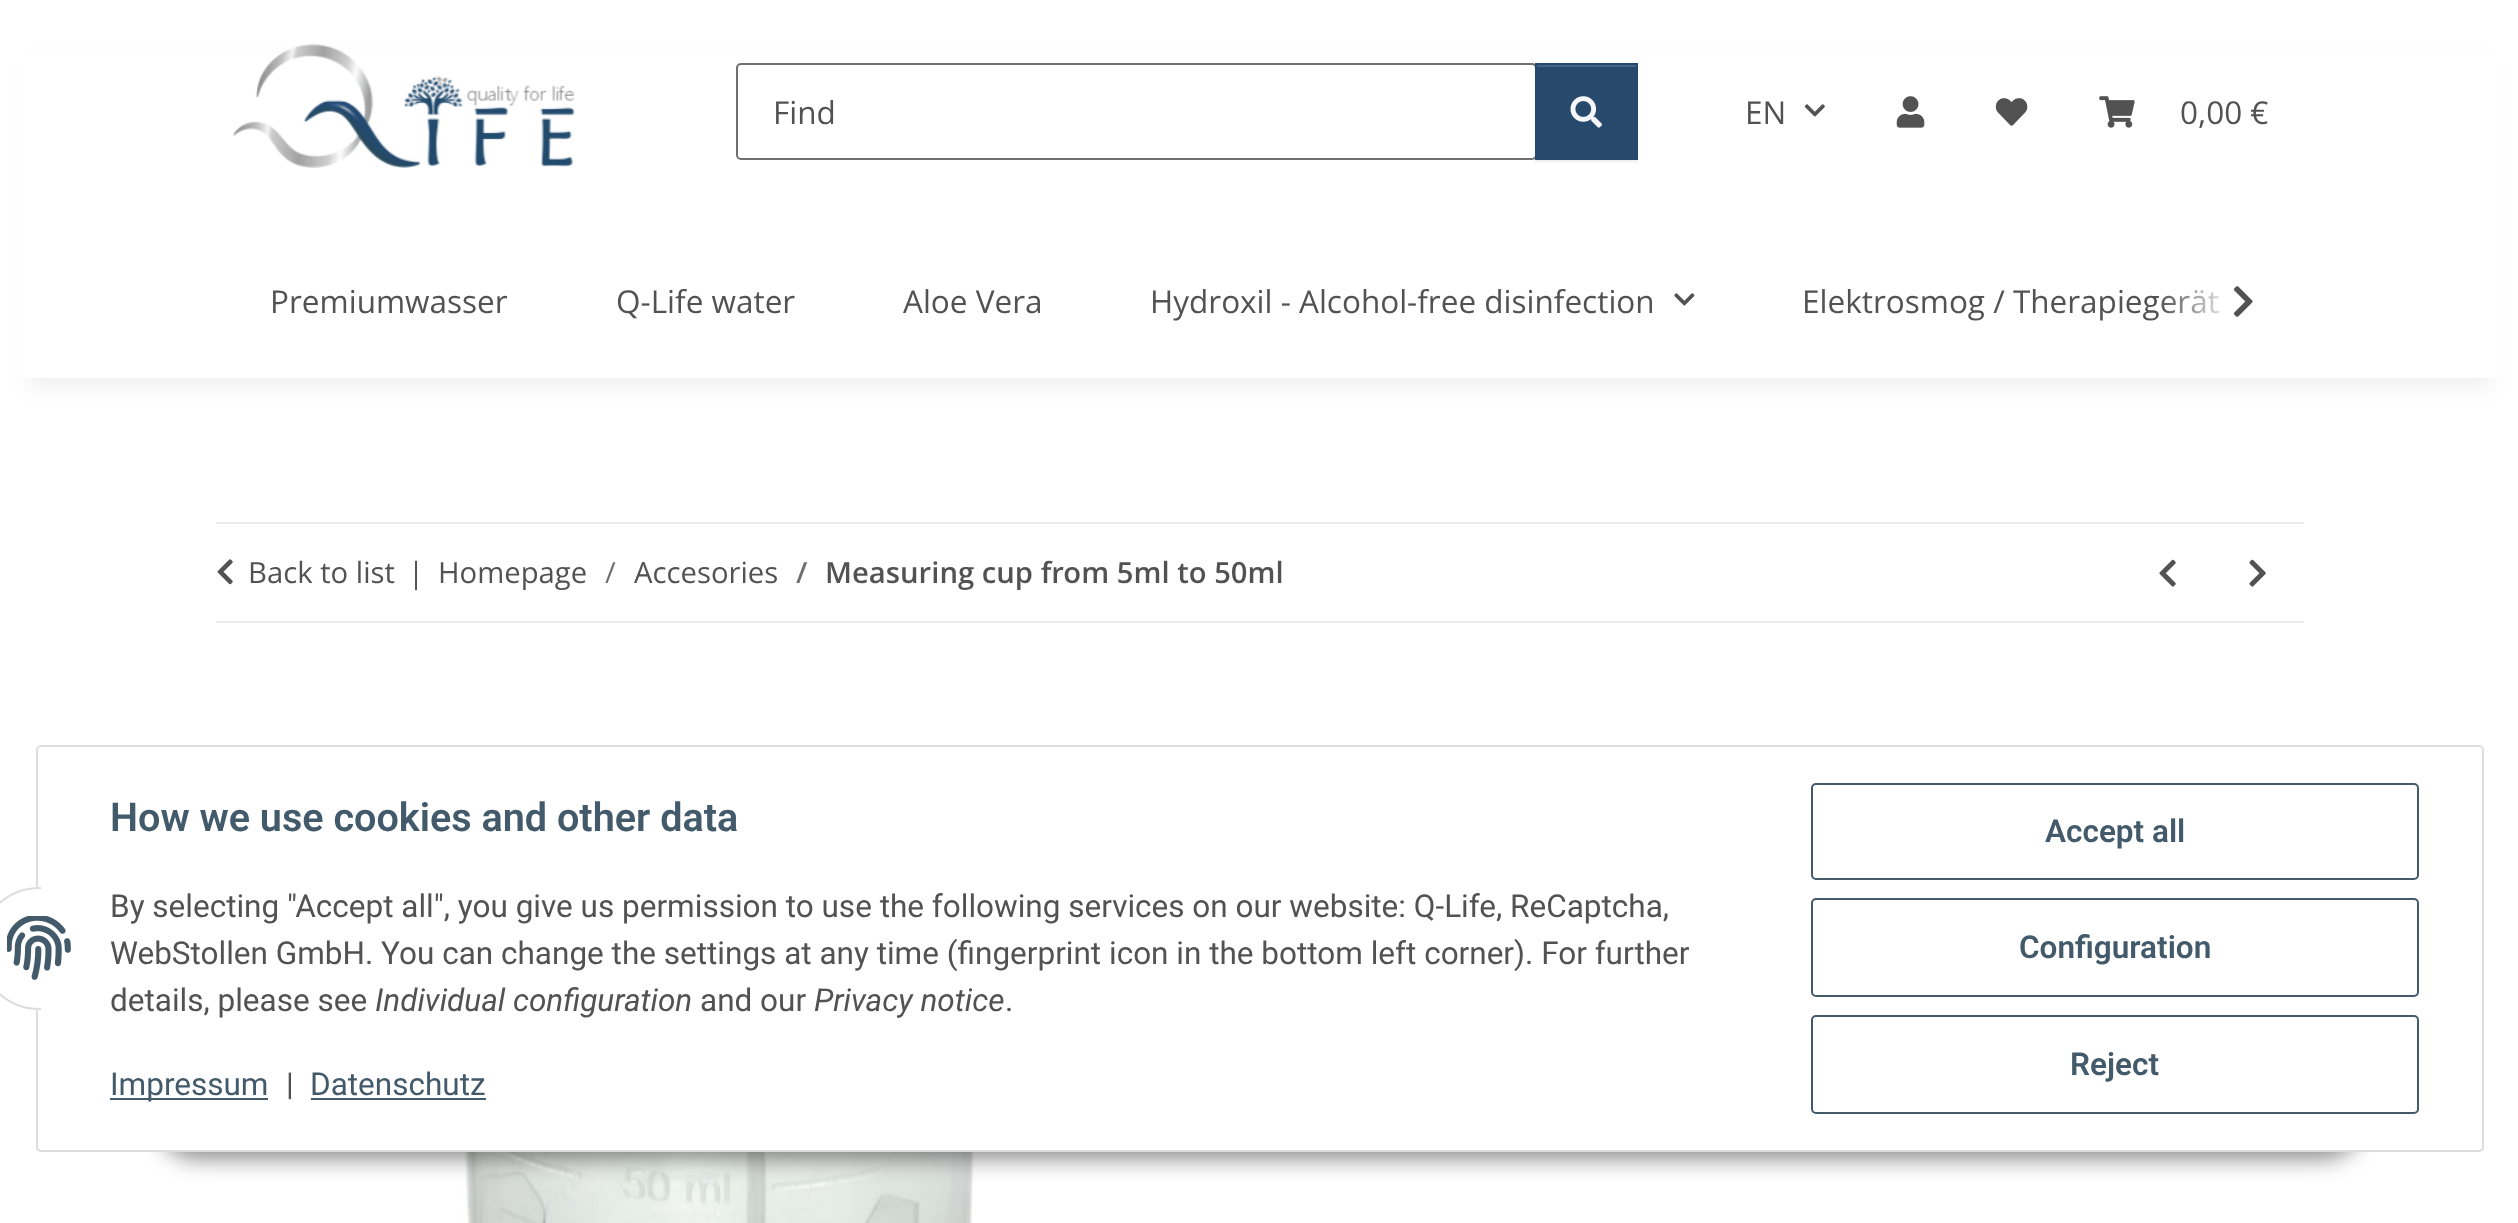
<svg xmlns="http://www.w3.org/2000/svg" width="2518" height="1223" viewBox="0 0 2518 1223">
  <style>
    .t1 { font: 31.5px Open Sans; fill: #525252; }
    .t2 { font: 29.25px Open Sans; fill: #525252; }
    .t3 { font: 29.25px Open Sans; fill: #707070; }
    .t4 { font: 600 29.25px Open Sans; fill: #707070; }
    .t5 { font: 600 29.25px Open Sans; fill: #525252; }
    .t6 { font: 600 39.6px Roboto; fill: #435a6b; }
    .t7 { font: 31.5px Roboto; fill: #525252; }
    .t8 { font: italic 31.5px Roboto; fill: #525252; }
    .t9 { font: 31.5px Roboto; fill: #435a6b; }
    .t10 { font: 600 31.5px Roboto; fill: #435a6b; }
  </style>
  <defs>
    <linearGradient id="g1" gradientUnits="userSpaceOnUse" x1="2160" y1="302" x2="2268" y2="302"><stop offset="0" stop-color="#fff" stop-opacity="0.01"/><stop offset="0.7" stop-color="#fff"/></linearGradient>
  </defs>
  <rect width="100%" height="100%" fill="#fff"/>
  <rect x="27" y="63" width="2466" height="324" fill="#0000000f" filter="blur(10px)"/>
  <rect x="17" y="53" width="2486" height="325" fill="#fff"/>
  <image x="233" y="43" width="342" height="125" href="images/1.png"/>
  <rect x="737" y="64" width="799" height="95" rx="4" fill="none" stroke="#707070" stroke-width="2"/>
  <text x="773" y="124" class="t1">Find</text>
  <rect x="1535" y="65" width="103" height="97" fill="#00000012" filter="blur(1px)"/>
  <rect x="1535" y="63" width="103" height="97" fill="#26496c"/>
  <rect x="1537" y="65" width="99" height="2" fill="#476482"/>
  <image x="1570" y="96" width="32" height="32" href="images/2.png"/>
  <text x="1745" y="124" class="t1">EN</text>
  <image x="1804" y="104" width="21" height="13" href="images/3.png"/>
  <image x="1896" y="96" width="29" height="32" href="images/4.png"/>
  <image x="1995" y="98" width="33" height="28" href="images/5.png"/>
  <image x="2099" y="96" width="36" height="32" href="images/6.png"/>
  <text x="2180" y="124" class="t1">0,00 €</text>
  <text x="1802" y="313" class="t1">Elektrosmog / Therapiegerät</text>
  <rect x="2161" y="290" width="57" height="24" fill="url(#g1)"/>
  <image x="2233" y="286" width="20" height="31" href="images/7.png"/>
  <text x="270" y="313" class="t1">Premiumwasser</text>
  <text x="616" y="313" class="t1">Q-Life water</text>
  <text x="903" y="313" class="t1">Aloe Vera</text>
  <text x="1150" y="313" class="t1">Hydroxil - Alcohol-free disinfection</text>
  <image x="1674" y="293" width="21" height="13" href="images/8.png"/>
  <rect x="216" y="522" width="2088" height="2" fill="#ebebeb"/>
  <rect x="216" y="621" width="2088" height="2" fill="#ebebeb"/>
  <image x="217" y="559" width="16" height="26" href="images/9.png"/>
  <text x="248" y="583" class="t2">Back to list</text>
  <text x="408" y="583" class="t2">|</text>
  <text x="438" y="583" class="t2">Homepage</text>
  <text x="605" y="583" class="t3">/</text>
  <text x="634" y="583" class="t2">Accesories</text>
  <text x="796" y="583" class="t4">/</text>
  <text x="825" y="583" class="t5">Measuring cup from 5ml to 50ml</text>
  <image x="2159" y="559" width="17" height="28" href="images/10.png"/>
  <image x="2249" y="559" width="17" height="28" href="images/11.png"/>
  <image x="459" y="1152" width="518" height="71" href="images/12.png"/>
  <rect x="160" y="1087" width="2200" height="72" rx="36" fill="#00000073" filter="blur(11px)"/>
  <rect x="37" y="746" width="2446" height="405" rx="4" fill="#fff" stroke="#ddd" stroke-width="2"/>
  <circle cx="39.5" cy="948.5" r="60.5" fill="#fff" stroke="#ddd" stroke-width="2"/>
  <rect x="41" y="887" width="60" height="123" fill="#fff"/>
  <image x="7" y="916" width="64" height="64" href="images/13.png"/>
  <text x="110" y="831" class="t6">How we use cookies and other data</text>
  <text x="110" y="917" class="t7">By selecting "Accept all", you give us permission to use the following services on our website: Q-Life, ReCaptcha,</text>
  <text x="110" y="964" class="t7">WebStollen GmbH. You can change the settings at any time (fingerprint icon in the bottom left corner). For further</text>
  <text x="110" y="1011" class="t7">details, please see</text>
  <text x="375" y="1011" class="t8">Individual configuration</text>
  <text x="700" y="1011" class="t7">and our</text>
  <text x="814" y="1011" class="t8">Privacy notice</text>
  <text x="1005" y="1011" class="t7">.</text>
  <rect x="110" y="1098" width="158" height="2" fill="#435a6b"/>
  <text x="110" y="1095" class="t9">Impressum</text>
  <text x="286" y="1095" class="t7">|</text>
  <text x="310" y="1095" class="t9">Datenschutz</text>
  <rect x="311" y="1098" width="175" height="2" fill="#435a6b"/>
  <rect x="1812" y="784" width="606" height="95" rx="4" fill="none" stroke="#435a6b" stroke-width="2"/>
  <text x="2045" y="842" class="t10">Accept all</text>
  <rect x="1812" y="899" width="606" height="97" rx="4" fill="none" stroke="#435a6b" stroke-width="2"/>
  <text x="2019" y="958" class="t10">Configuration</text>
  <rect x="1812" y="1016" width="606" height="97" rx="4" fill="none" stroke="#435a6b" stroke-width="2"/>
  <text x="2070" y="1075" class="t10">Reject</text>
</svg>
